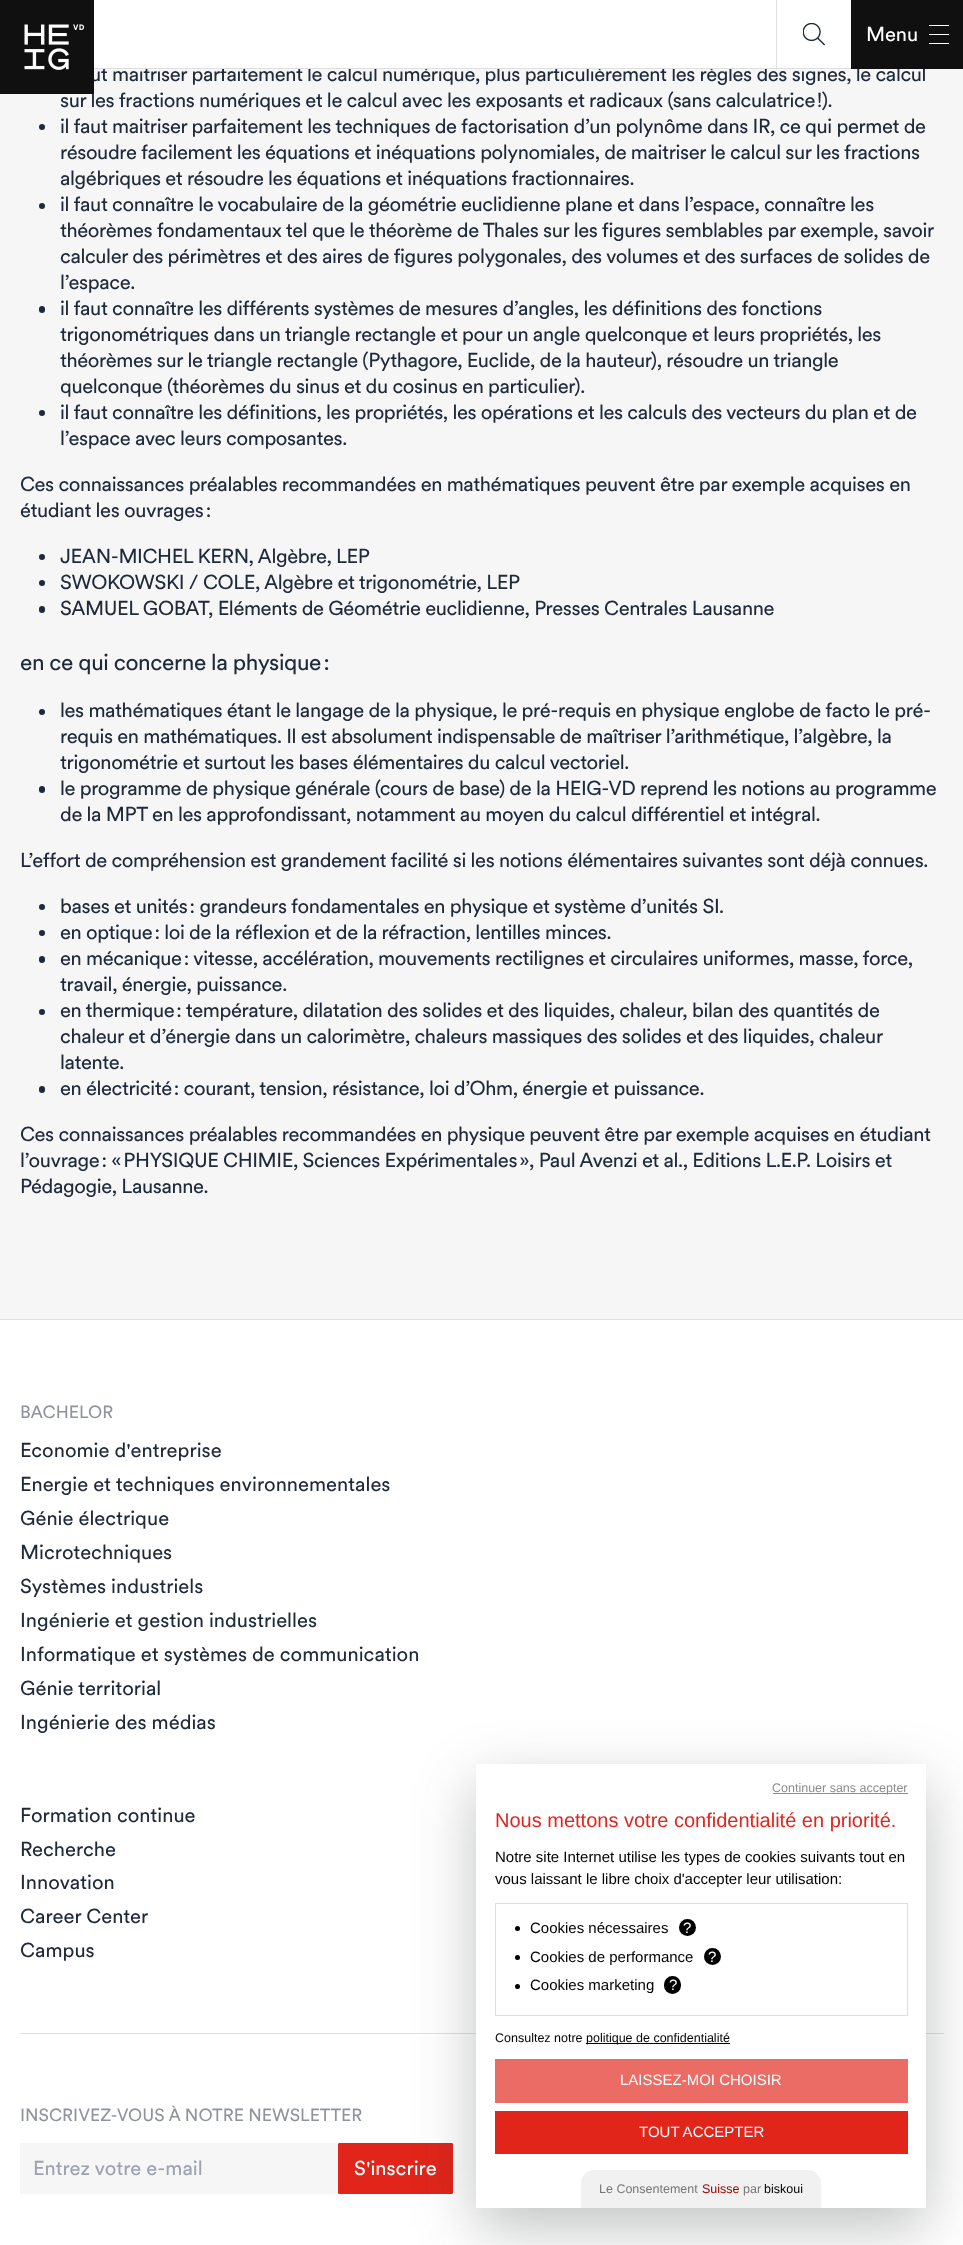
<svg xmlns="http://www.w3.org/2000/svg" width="963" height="2245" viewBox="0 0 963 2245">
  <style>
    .t1 { font: 20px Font; letter-spacing: -0.4px; fill: #1e2939; }
    .t2 { font: 20px Font; fill: #fff; }
    .t3 { font: 22.5px Font; letter-spacing: -0.4px; fill: #1e2939; }
    .t4 { font: 17.5px Font; fill: #8f949c; }
    .t5 { font: 20px Font; fill: #1e2939; }
    .t6 { font: 20px Font; fill: #9ca3af; }
    .t7 { font: 12.5px Liberation Sans; fill: #8c8c8c; }
    .t8 { font: 20px Liberation Sans; fill: #e1251b; }
    .t9 { font: 15px Liberation Sans; fill: #000; }
    .t10 { font: 15px Liberation Sans; fill: #fff; }
    .t11 { font: 12.5px Liberation Sans; fill: #000; }
    .t12 { font: 12.5px Liberation Sans; fill: #767676; }
    .t13 { font: 12.5px Liberation Sans; fill: #9c0000; }
  </style>
  <rect width="100%" height="100%" fill="#f6f6f6"/>
  <text x="90" y="81" class="t1">ut maitriser parfaitement le calcul numérique, plus particulièrement les règles des signes, le calcul</text>
  <rect x="94" y="0" width="757" height="68" fill="#fff"/>
  <rect x="94" y="68" width="757" height="1" fill="#e0e0e0"/>
  <text x="60" y="107" class="t1">sur les fractions numériques et le calcul avec les exposants et radicaux (sans calculatrice !).</text>
  <image x="0" y="0" width="94" height="94" href="images/1.png"/>
  <rect x="776" y="0" width="1" height="69" fill="#e0e0e0"/>
  <image x="803" y="23" width="22" height="23" href="images/2.png"/>
  <rect x="851" y="0" width="112" height="69" fill="#101010"/>
  <text x="866" y="41" class="t2">Menu</text>
  <rect x="929" y="34" width="20" height="1" fill="#fff"/>
  <rect x="929" y="25" width="20" height="1" fill="#fff"/>
  <rect x="929" y="43" width="20" height="1" fill="#fff"/>
  <circle cx="42" cy="127" r="3" fill="#1e2939"/>
  <text x="60" y="133" class="t1">il faut maitriser parfaitement les techniques de factorisation d’un polynôme dans IR, ce qui permet de</text>
  <text x="60" y="159" class="t1">résoudre facilement les équations et inéquations polynomiales, de maitriser le calcul sur les fractions</text>
  <text x="60" y="185" class="t1">algébriques et résoudre les équations et inéquations fractionnaires.</text>
  <circle cx="42" cy="206" r="3" fill="#1e2939"/>
  <text x="60" y="211" class="t1">il faut connaître le vocabulaire de la géométrie euclidienne plane et dans l’espace, connaître les</text>
  <text x="60" y="237" class="t1">théorèmes fondamentaux tel que le théorème de Thales sur les figures semblables par exemple, savoir</text>
  <text x="60" y="263" class="t1">calculer des périmètres et des aires de figures polygonales, des volumes et des surfaces de solides de</text>
  <text x="60" y="289" class="t1">l’espace.</text>
  <rect x="39" y="306" width="6" height="7" rx="3" fill="#1e2939"/>
  <text x="60" y="315" class="t1">il faut connaître les différents systèmes de mesures d’angles, les définitions des fonctions</text>
  <text x="60" y="341" class="t1">trigonométriques dans un triangle rectangle et pour un angle quelconque et leurs propriétés, les</text>
  <text x="60" y="367" class="t1">théorèmes sur le triangle rectangle (Pythagore, Euclide, de la hauteur), résoudre un triangle</text>
  <text x="60" y="393" class="t1">quelconque (théorèmes du sinus et du cosinus en particulier).</text>
  <circle cx="42" cy="413" r="3" fill="#1e2939"/>
  <text x="60" y="419" class="t1">il faut connaître les définitions, les propriétés, les opérations et les calculs des vecteurs du plan et de</text>
  <text x="60" y="445" class="t1">l’espace avec leurs composantes.</text>
  <text x="20" y="491" class="t1">Ces connaissances préalables recommandées en mathématiques peuvent être par exemple acquises en</text>
  <text x="20" y="517" class="t1">étudiant les ouvrages :</text>
  <circle cx="42" cy="557" r="3" fill="#1e2939"/>
  <text x="60" y="563" class="t1">JEAN-MICHEL KERN, Algèbre, LEP</text>
  <circle cx="42" cy="583" r="3" fill="#1e2939"/>
  <text x="60" y="589" class="t1">SWOKOWSKI / COLE, Algèbre et trigonométrie, LEP</text>
  <rect x="39" y="606" width="6" height="7" rx="3" fill="#1e2939"/>
  <text x="60" y="615" class="t1">SAMUEL GOBAT, Eléments de Géométrie euclidienne, Presses Centrales Lausanne</text>
  <text x="20" y="670" class="t3">en ce qui concerne la physique :</text>
  <circle cx="42" cy="712" r="3" fill="#1e2939"/>
  <text x="60" y="717" class="t1">les mathématiques étant le langage de la physique, le pré-requis en physique englobe de facto le pré-</text>
  <text x="60" y="743" class="t1">requis en mathématiques. Il est absolument indispensable de maîtriser l’arithmétique, l’algèbre, la</text>
  <text x="60" y="769" class="t1">trigonométrie et surtout les bases élémentaires du calcul vectoriel.</text>
  <rect x="39" y="786" width="6" height="7" rx="3" fill="#1e2939"/>
  <text x="60" y="795" class="t1">le programme de physique générale (cours de base) de la HEIG-VD reprend les notions au programme</text>
  <text x="60" y="821" class="t1">de la MPT en les approfondissant, notamment au moyen du calcul différentiel et intégral.</text>
  <text x="20" y="867" class="t1">L’effort de compréhension est grandement facilité si les notions élémentaires suivantes sont déjà connues.</text>
  <circle cx="42" cy="907" r="3" fill="#1e2939"/>
  <text x="60" y="913" class="t1">bases et unités : grandeurs fondamentales en physique et système d’unités SI.</text>
  <circle cx="42" cy="933" r="3" fill="#1e2939"/>
  <text x="60" y="939" class="t1">en optique : loi de la réflexion et de la réfraction, lentilles minces.</text>
  <rect x="39" y="956" width="6" height="7" rx="3" fill="#1e2939"/>
  <text x="60" y="965" class="t1">en mécanique : vitesse, accélération, mouvements rectilignes et circulaires uniformes, masse, force,</text>
  <text x="60" y="991" class="t1">travail, énergie, puissance.</text>
  <circle cx="42" cy="1012" r="3" fill="#1e2939"/>
  <text x="60" y="1017" class="t1">en thermique : température, dilatation des solides et des liquides, chaleur, bilan des quantités de</text>
  <text x="60" y="1043" class="t1">chaleur et d’énergie dans un calorimètre, chaleurs massiques des solides et des liquides, chaleur</text>
  <text x="60" y="1069" class="t1">latente.</text>
  <rect x="39" y="1086" width="6" height="7" rx="3" fill="#1e2939"/>
  <text x="60" y="1095" class="t1">en électricité : courant, tension, résistance, loi d’Ohm, énergie et puissance.</text>
  <text x="20" y="1141" class="t1">Ces connaissances préalables recommandées en physique peuvent être par exemple acquises en étudiant</text>
  <text x="20" y="1167" class="t1">l’ouvrage : « PHYSIQUE CHIMIE, Sciences Expérimentales », Paul Avenzi et al., Editions L.E.P. Loisirs et</text>
  <text x="20" y="1193" class="t1">Pédagogie, Lausanne.</text>
  <rect x="0" y="1320" width="963" height="925" fill="#fff"/>
  <rect x="0" y="1319" width="963" height="1" fill="#e0e0e0"/>
  <text x="20" y="1418" class="t4">BACHELOR</text>
  <text x="20" y="1457" class="t5">Economie d'entreprise</text>
  <text x="20" y="1491" class="t5">Energie et techniques environnementales</text>
  <text x="20" y="1525" class="t5">Génie électrique</text>
  <text x="20" y="1559" class="t5">Microtechniques</text>
  <text x="20" y="1593" class="t5">Systèmes industriels</text>
  <text x="20" y="1627" class="t5">Ingénierie et gestion industrielles</text>
  <text x="20" y="1661" class="t5">Informatique et systèmes de communication</text>
  <text x="20" y="1695" class="t5">Génie territorial</text>
  <text x="20" y="1729" class="t5">Ingénierie des médias</text>
  <text x="20" y="1822" class="t5">Formation continue</text>
  <text x="20" y="1856" class="t5">Recherche</text>
  <text x="20" y="1889" class="t5">Innovation</text>
  <text x="20" y="1923" class="t5">Career Center</text>
  <text x="20" y="1957" class="t5">Campus</text>
  <rect x="20" y="2033" width="924" height="1" fill="#e0e0e0"/>
  <text x="20" y="2121" class="t4">INSCRIVEZ-VOUS À NOTRE NEWSLETTER</text>
  <rect x="20" y="2143" width="318" height="51" fill="#f6f6f6"/>
  <text x="33" y="2175" class="t6">Entrez votre e-mail</text>
  <rect x="338.5" y="2143.5" width="114" height="50" rx="0.5" fill="#e1251b" stroke="#e1251b"/>
  <text x="354" y="2175" class="t2">S'inscrire</text>
  <rect x="476" y="1784" width="450" height="444" fill="#21252947" filter="blur(30px)"/>
  <rect x="476" y="1764" width="450" height="444" fill="#fff"/>
  <rect x="773" y="1793" width="135" height="1" fill="#8c8c8c"/>
  <text x="772" y="1792" class="t7">Continuer sans accepter</text>
  <text x="495" y="1827" class="t8">Nous mettons votre confidentialité en priorité.</text>
  <text x="495" y="1862" class="t9">Notre site Internet utilise les types de cookies suivants tout en</text>
  <text x="495" y="1884" class="t9">vous laissant le libre choix d'accepter leur utilisation:</text>
  <rect x="495.5" y="1903.5" width="412" height="112" fill="none" stroke="#ddd"/>
  <circle cx="517.5" cy="1928.5" r="2.5" fill="#000"/>
  <text x="530" y="1933" class="t9">Cookies nécessaires</text>
  <circle cx="687.5" cy="1927.5" r="8.5" fill="#000"/>
  <text x="683" y="1933" class="t10">?</text>
  <circle cx="517.5" cy="1957.5" r="2.5" fill="#000"/>
  <text x="530" y="1962" class="t9">Cookies de performance</text>
  <circle cx="712.5" cy="1956.5" r="8.5" fill="#000"/>
  <text x="708" y="1962" class="t10">?</text>
  <circle cx="517.5" cy="1986.5" r="2.5" fill="#000"/>
  <text x="530" y="1990" class="t9">Cookies marketing</text>
  <rect x="664" y="1976" width="17" height="18" rx="8.5" fill="#000"/>
  <text x="669" y="1990" class="t10">?</text>
  <text x="495" y="2042" class="t11">Consultez notre</text>
  <rect x="586" y="2043" width="144" height="1" fill="#000"/>
  <text x="586" y="2042" class="t11">politique de confidentialité</text>
  <rect x="495" y="2059" width="413" height="44" fill="#eb6c65"/>
  <text x="620" y="2085" class="t10">LAISSEZ-MOI CHOISIR</text>
  <rect x="495" y="2111" width="413" height="43" fill="#e1251b"/>
  <text x="639" y="2137" class="t10">TOUT ACCEPTER</text>
  <path d="M594 2170H808C815 2170 821 2176 821 2183V2208H581V2183C581 2176 587 2170 594 2170Z" fill="#f1f1f1"/>
  <text x="599" y="2193" class="t12">Le Consentement</text>
  <text x="702" y="2193" class="t13">Suisse</text>
  <text x="743" y="2193" class="t12">par</text>
  <text x="764" y="2193" class="t11">biskoui</text>
</svg>
